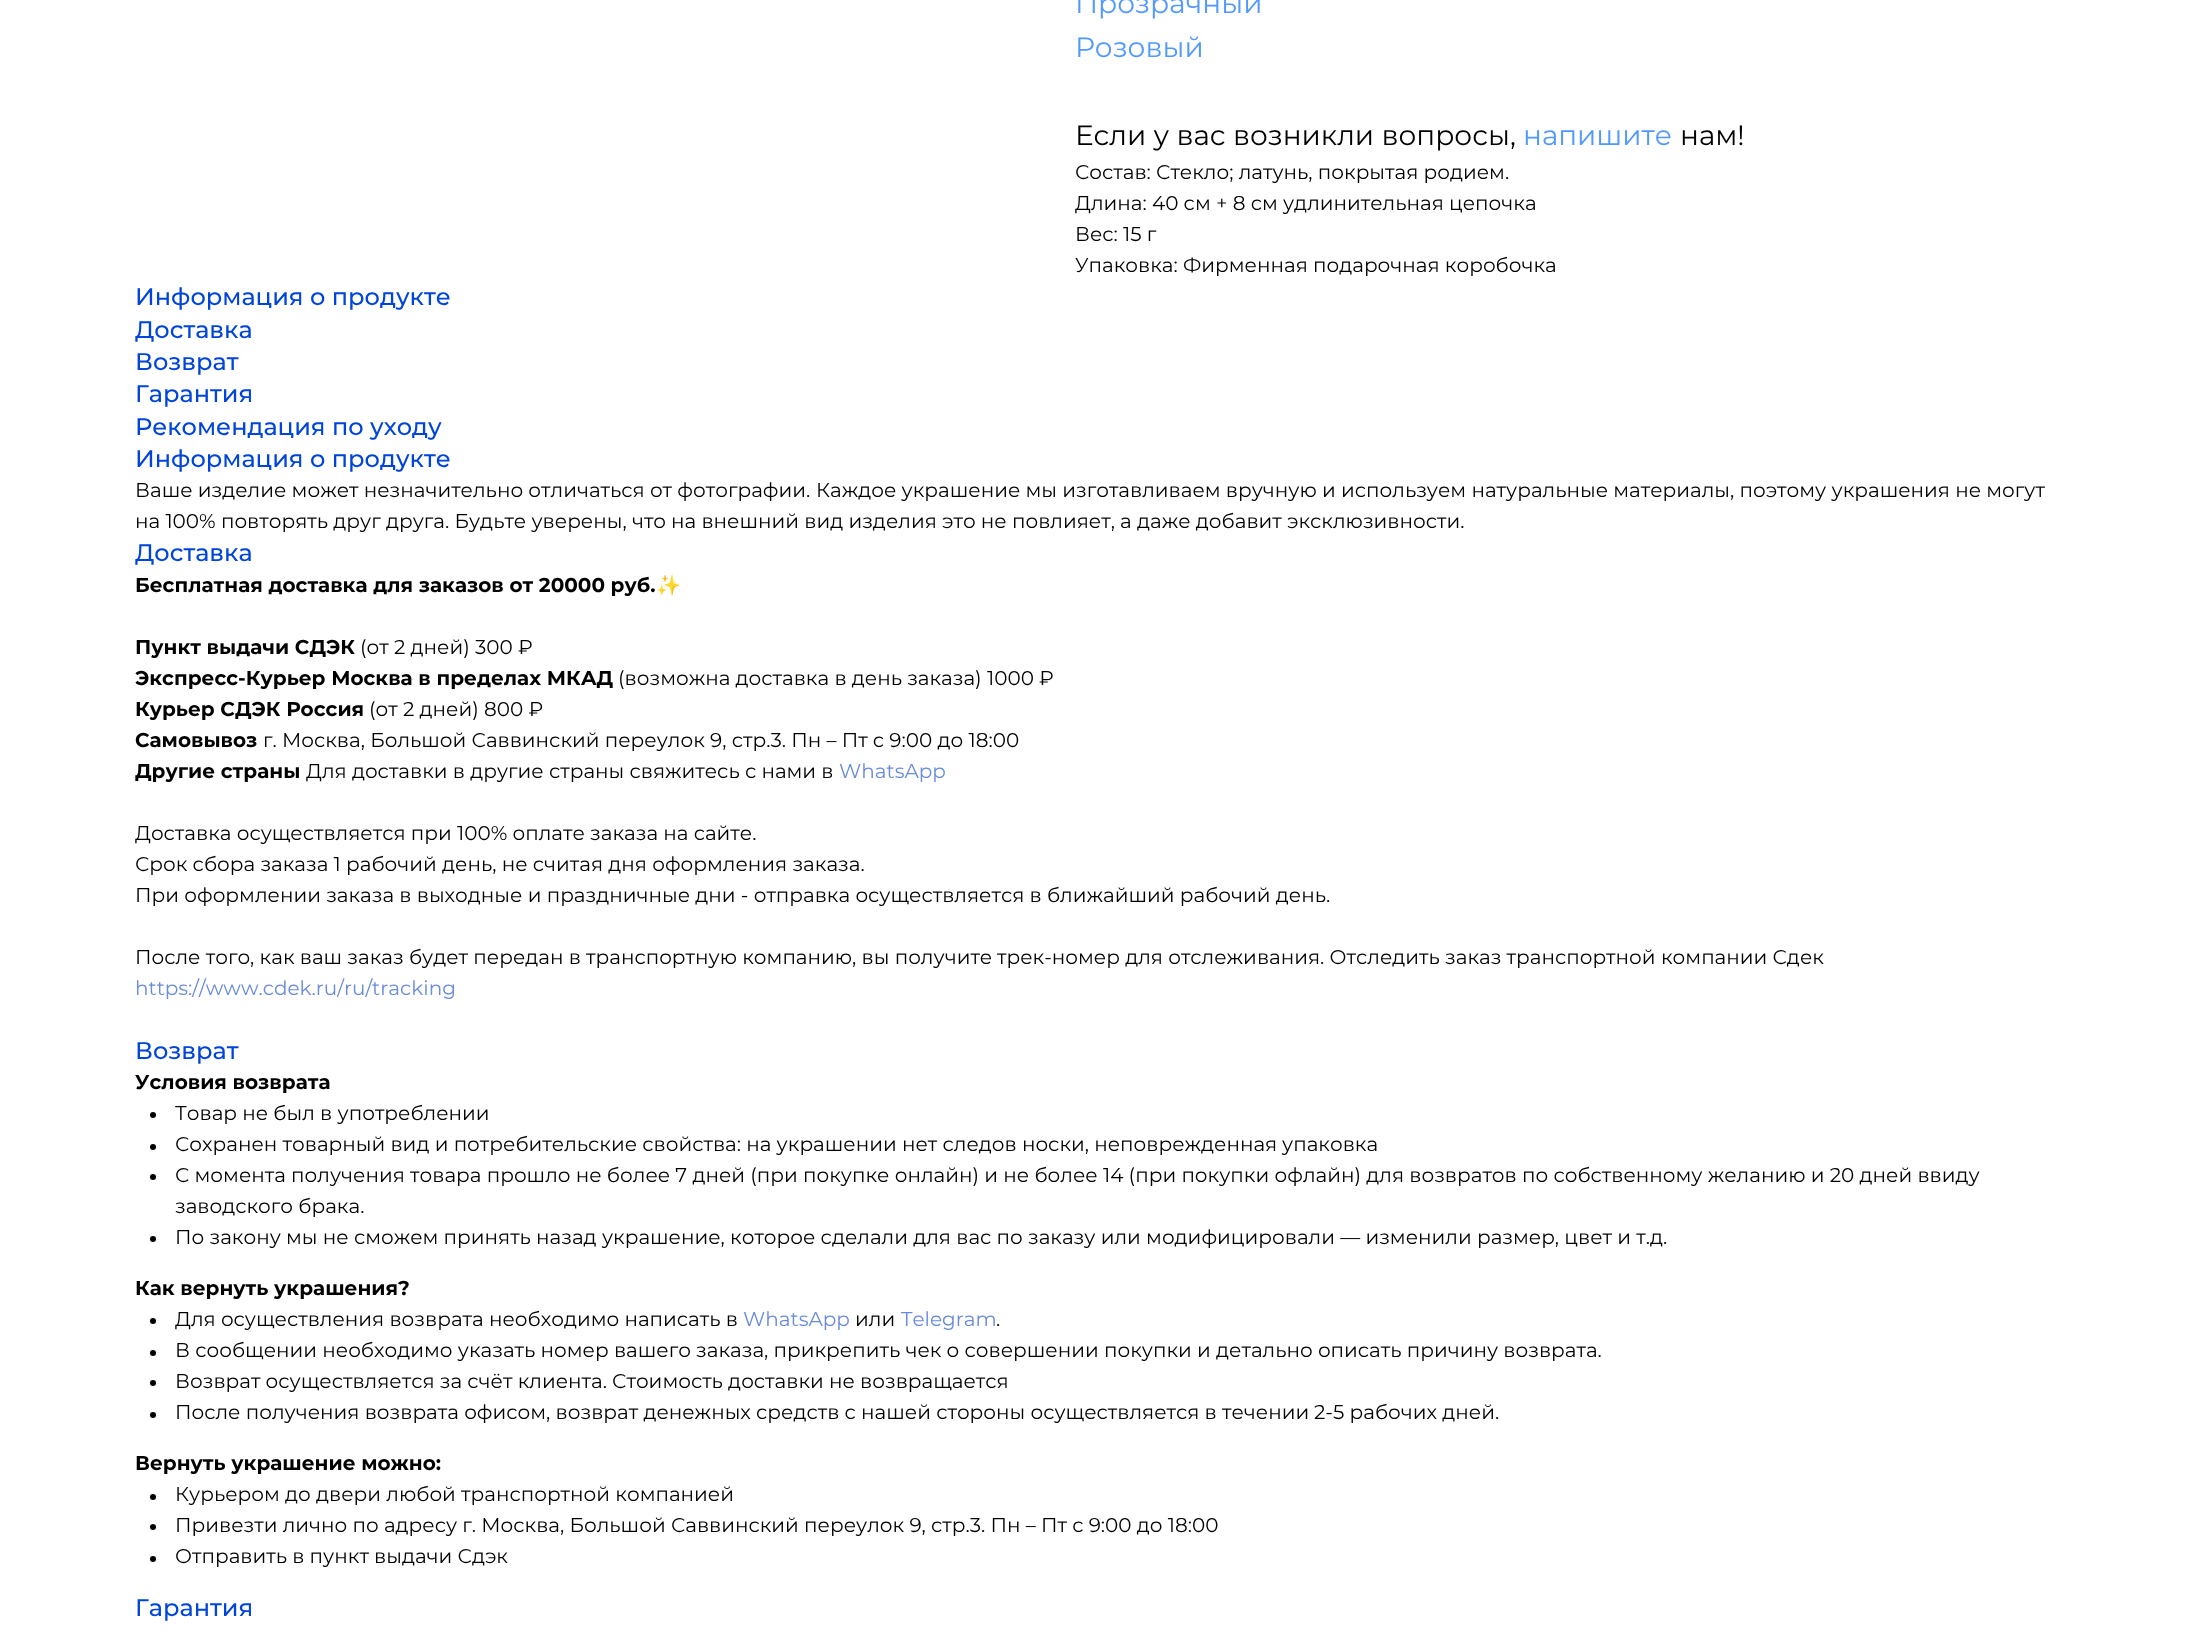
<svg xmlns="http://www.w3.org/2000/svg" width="2189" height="1637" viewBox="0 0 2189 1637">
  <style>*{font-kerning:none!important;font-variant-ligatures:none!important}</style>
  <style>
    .t1 { font: 28px Montserrat; fill: #5199ff; }
    .t2 { font: 28px Montserrat; fill: #000; }
    .t3 { font: 20px Montserrat; fill: #000; }
    .t4 { font: 500 24px Montserrat; fill: #0045d9; }
    .t5 { font: bold 20px Montserrat; fill: #000; }
    .t6 { font: bold 20px Noto Color Emoji; fill: #000; }
    .t7 { font: 20px Montserrat; fill: #698bdb; }
  </style>
  <rect width="100%" height="100%" fill="#fff"/>
  <text x="1075" y="13" class="t1">Прозрачный</text>
  <text x="1075" y="57" class="t1">Розовый</text>
  <text x="1075" y="145" class="t2">Если у вас возникли вопросы,</text>
  <text x="1523" y="145" class="t1">напишите</text>
  <text x="1680" y="145" class="t2">нам!</text>
  <text x="1075" y="179" class="t3">Состав: Стекло; латунь, покрытая родием.</text>
  <text x="1075" y="210" class="t3">Длина: 40 см + 8 см удлинительная цепочка</text>
  <text x="1075" y="241" class="t3">Вес: 15 г</text>
  <text x="1075" y="272" class="t3">Упаковка: Фирменная подарочная коробочка</text>
  <text x="135" y="305" class="t4">Информация о продукте</text>
  <text x="135" y="338" class="t4">Доставка</text>
  <text x="135" y="370" class="t4">Возврат</text>
  <text x="135" y="402" class="t4">Гарантия</text>
  <text x="135" y="435" class="t4">Рекомендация по уходу</text>
  <text x="135" y="467" class="t4">Информация о продукте</text>
  <text x="135" y="497" class="t3">Ваше изделие может незначительно отличаться от фотографии.</text>
  <text x="816" y="497" class="t3">Каждое украшение мы изготавливаем вручную и используем натуральные материалы, поэтому украшения не могут</text>
  <text x="135" y="528" class="t3">на 100% повторять друг друга. Будьте уверены, что</text>
  <text x="671" y="528" class="t3">на внешний вид изделия это не повлияет, а даже добавит эксклюзивности.</text>
  <text x="135" y="561" class="t4">Доставка</text>
  <text x="135" y="592" class="t5">Бесплатная доставка для заказов от 20000 руб.</text>
  <text x="656" y="592" class="t6">✨</text>
  <text x="135" y="654" class="t5">Пункт выдачи СДЭК</text>
  <text x="360" y="654" class="t3">(от 2 дней) 300 ₽</text>
  <text x="135" y="685" class="t5">Экспресс-Курьер Москва в пределах МКАД</text>
  <text x="618" y="685" class="t3">(возможна доставка в день заказа) 1000 ₽</text>
  <text x="135" y="716" class="t5">Курьер СДЭК Россия</text>
  <text x="369" y="716" class="t3">(от 2 дней) 800 ₽</text>
  <text x="135" y="747" class="t5">Самовывоз</text>
  <text x="263" y="747" class="t3">г. Москва, Большой Саввинский переулок 9, стр.3. Пн – Пт с 9:00 до 18:00</text>
  <text x="135" y="778" class="t5">Другие страны</text>
  <text x="306" y="778" class="t3">Для доставки в другие страны свяжитесь с нами в</text>
  <text x="839" y="778" class="t7">WhatsApp</text>
  <text x="135" y="840" class="t3">Доставка осуществляется при 100% оплате заказа на сайте.</text>
  <text x="135" y="871" class="t3">Срок сбора заказа 1 рабочий день, не считая дня оформления заказа.</text>
  <text x="135" y="902" class="t3">При оформлении заказа в выходные и праздничные дни - отправка осуществляется в ближайший рабочий день.</text>
  <text x="135" y="964" class="t3">После того, как ваш заказ будет передан в транспортную компанию, вы получите</text>
  <text x="997" y="964" class="t3">трек-номер для отслеживания. Отследить заказ транспортной</text>
  <text x="1661" y="964" class="t3">компании Сдек</text>
  <text x="135" y="995" class="t7">https://www.cdek.ru/ru/tracking</text>
  <text x="135" y="1059" class="t4">Возврат</text>
  <text x="135" y="1089" class="t5">Условия возврата</text>
  <circle cx="153" cy="1115" r="3" fill="#000"/>
  <text x="175" y="1120" class="t3">Товар не был в употреблении</text>
  <circle cx="153" cy="1147" r="3" fill="#000"/>
  <text x="175" y="1151" class="t3">Сохранен товарный вид и потребительские свойства: на украшении нет следов носки, неповрежденная</text>
  <text x="1282" y="1151" class="t3">упаковка</text>
  <circle cx="153" cy="1177" r="3" fill="#000"/>
  <text x="175" y="1182" class="t3">С момента получения товара прошло не более 7 дней (при покупке онлайн) и не более 14 (при покупки офлайн) для возвратов по собственному желанию и 20 дней ввиду</text>
  <text x="175" y="1213" class="t3">заводского брака.</text>
  <circle cx="153" cy="1239" r="3" fill="#000"/>
  <text x="175" y="1244" class="t3">По закону мы не сможем принять назад украшение, которое сделали для вас по заказу или модифицировали — изменили размер, цвет и т.д.</text>
  <text x="135" y="1295" class="t5">Как вернуть украшения?</text>
  <circle cx="153" cy="1321" r="3" fill="#000"/>
  <text x="175" y="1326" class="t3">Для осуществления возврата необходимо написать в</text>
  <text x="743" y="1326" class="t7">WhatsApp</text>
  <text x="855" y="1326" class="t3">или</text>
  <text x="901" y="1326" class="t7">Telegram</text>
  <text x="996" y="1326" class="t3">.</text>
  <circle cx="153" cy="1353" r="3" fill="#000"/>
  <text x="175" y="1357" class="t3">В сообщении необходимо указать номер вашего заказа, прикрепить чек о совершении покупки и детально описать причину возврата.</text>
  <circle cx="153" cy="1383" r="3" fill="#000"/>
  <text x="175" y="1388" class="t3">Возврат осуществляется за счёт клиента. Стоимость доставки не возвращается</text>
  <circle cx="153" cy="1415" r="3" fill="#000"/>
  <text x="175" y="1419" class="t3">После получения возврата офисом, возврат денежных средств с нашей стороны осуществляется в течении</text>
  <text x="1314" y="1419" class="t3">2-5 рабочих дней.</text>
  <text x="135" y="1470" class="t5">Вернуть украшение можно:</text>
  <circle cx="153" cy="1497" r="3" fill="#000"/>
  <text x="175" y="1501" class="t3">Курьером до двери любой транспортной компанией</text>
  <circle cx="153" cy="1527" r="3" fill="#000"/>
  <text x="175" y="1532" class="t3">Привезти лично по адресу г. Москва, Большой Саввинский переулок 9, стр.3. Пн – Пт с 9:00 до 18:00</text>
  <circle cx="153" cy="1559" r="3" fill="#000"/>
  <text x="175" y="1563" class="t3">Отправить в пункт выдачи Сдэк</text>
  <text x="135" y="1616" class="t4">Гарантия</text>
</svg>
